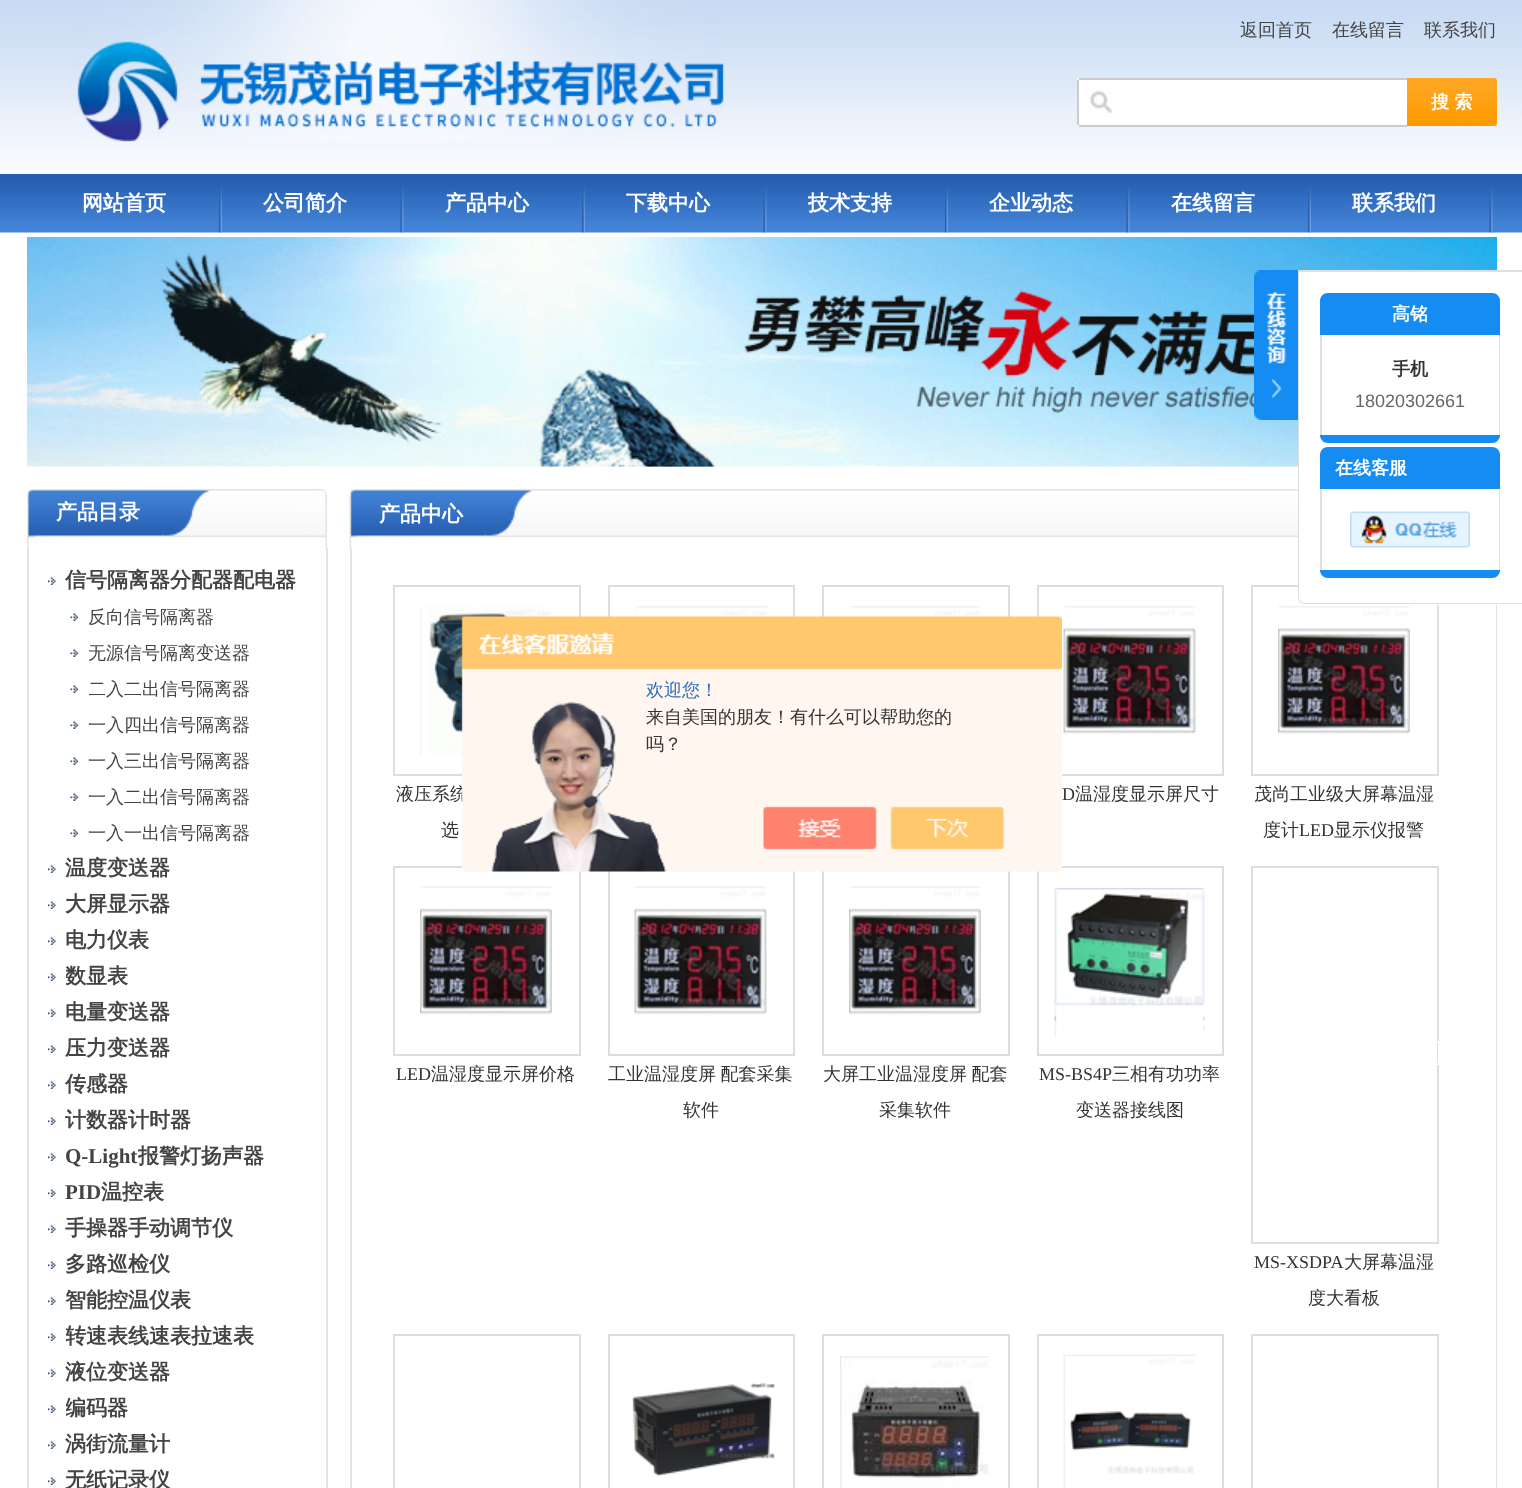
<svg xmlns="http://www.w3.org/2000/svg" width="1522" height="1488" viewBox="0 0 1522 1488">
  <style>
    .t1 { font: 500 18px WenQuanYi Zen Hei; fill: #444; }
    .t2 { font: bold 18px WenQuanYi Zen Hei; fill: #fff; }
    .t3 { font: bold 21px WenQuanYi Zen Hei; fill: #fff; }
    .t4 { font: bold 18px WenQuanYi Zen Hei; fill: #333; }
    .t5 { font: 18px Liberation Sans; fill: #666; }
    .t6 { font: bold 21px WenQuanYi Zen Hei; fill: #444; }
    .t7 { font: bold 21px Liberation Serif; fill: #444; }
    .t8 { font: 500 18px WenQuanYi Zen Hei; fill: #333; }
    .t9 { font: 18px Liberation Serif; fill: #333; }
    .t10 { font: 500 18px WenQuanYi Zen Hei; fill: #2e6ec6; }
  </style>
  <defs>
    <clipPath id="clip1"><rect x="89" y="635" width="225" height="36"/></clipPath>
    <clipPath id="clip2"><rect x="89" y="671" width="225" height="36"/></clipPath>
    <clipPath id="clip3"><rect x="66" y="959" width="255" height="36"/></clipPath>
    <clipPath id="clip4"><rect x="66" y="1319" width="255" height="36"/></clipPath>
    <clipPath id="clip5"><rect x="66" y="1391" width="255" height="36"/></clipPath>
  </defs>
  <rect width="100%" height="100%" fill="#fff"/>
  <image x="0" y="0" width="1522" height="174" href="images/1.png"/>
  <image x="77" y="0" width="647" height="142" href="images/2.png"/>
  <text x="1240" y="36" class="t1">返回首页</text>
  <text x="1332" y="36" class="t1">在线留言</text>
  <text x="1424" y="36" class="t1">联系我们</text>
  <path d="M1080 78H1407V126H1080C1078.5 126 1077 124.5 1077 123V81C1077 79.5 1078.5 78 1080 78Z" fill="#fff"/>
  <image x="1086" y="87" width="27" height="27" href="images/3.png"/>
  <rect x="1079" y="78" width="328" height="2" fill="#ccc"/>
  <rect x="1079" y="125" width="328" height="2" fill="#ccc"/>
  <rect x="1077" y="80" width="2" height="45" fill="#ccc"/>
  <image x="1407" y="78" width="90" height="48" href="images/4.png"/>
  <text x="1431" y="108" class="t2">搜 索</text>
  <image x="0" y="174" width="1522" height="59" href="images/5.png"/>
  <image x="219" y="186" width="3" height="47" href="images/6.png"/>
  <text x="82" y="210" class="t3">网站首页</text>
  <image x="400" y="186" width="4" height="47" href="images/7.png"/>
  <text x="263" y="210" class="t3">公司简介</text>
  <image x="582" y="186" width="3" height="47" href="images/8.png"/>
  <text x="445" y="210" class="t3">产品中心</text>
  <image x="763" y="186" width="4" height="47" href="images/7.png"/>
  <text x="626" y="210" class="t3">下载中心</text>
  <image x="945" y="186" width="3" height="47" href="images/6.png"/>
  <text x="808" y="210" class="t3">技术支持</text>
  <image x="1126" y="186" width="4" height="47" href="images/9.png"/>
  <text x="989" y="210" class="t3">企业动态</text>
  <image x="1308" y="186" width="3" height="47" href="images/6.png"/>
  <text x="1171" y="210" class="t3">在线留言</text>
  <image x="1489" y="186" width="4" height="47" href="images/7.png"/>
  <text x="1352" y="210" class="t3">联系我们</text>
  <image x="27" y="237" width="1470" height="230" href="images/10.png"/>
  <image x="540" y="466" width="758" height="1" href="images/11.png"/>
  <image x="1254" y="270" width="44" height="150" href="images/12.png"/>
  <rect x="1252" y="586" width="186" height="189" fill="none" stroke="#ddd" stroke-width="2"/>
  <path d="M1298 270H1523V605H1306C1301.5 605 1298 601.5 1298 597Z" fill="#fff"/>
  <path d="M1298 270H1522V604H1305C1301 604 1298 601 1298 597ZM1299 272H1522V603H1305C1302 603 1299 600 1299 597Z" fill="#dfdfdf" fill-rule="evenodd"/>
  <path d="M1328 293H1492C1496.5 293 1500 296.5 1500 301V335H1320V301C1320 296.5 1323.5 293 1328 293Z" fill="#158cf1"/>
  <text x="1392" y="320" class="t2">高铭</text>
  <rect x="1499" y="335" width="1" height="100" fill="#dfdfdf"/>
  <rect x="1320" y="335" width="2" height="100" fill="#dfdfdf"/>
  <text x="1392" y="375" class="t4">手机</text>
  <text x="1355" y="407" class="t5">18020302661</text>
  <path d="M1320 435H1500C1500 439.5 1496.5 443 1492 443H1328C1323.5 443 1320 439.5 1320 435Z" fill="#158cf1"/>
  <path d="M1328 447H1492C1496.5 447 1500 450.5 1500 455V489H1320V455C1320 450.5 1323.5 447 1328 447Z" fill="#158cf1"/>
  <text x="1335" y="474" class="t2">在线客服</text>
  <rect x="1499" y="489" width="1" height="81" fill="#dfdfdf"/>
  <rect x="1320" y="489" width="2" height="81" fill="#dfdfdf"/>
  <image x="1350" y="511" width="120" height="37" href="images/13.png"/>
  <path d="M1320 570H1500C1500 574.5 1496.5 578 1492 578H1328C1323.5 578 1320 574.5 1320 570Z" fill="#158cf1"/>
  <image x="27" y="489" width="300" height="59" href="images/14.png"/>
  <text x="56" y="519" class="t3">产品目录</text>
  <rect x="326" y="548" width="2" height="940" fill="#e3e3e3"/>
  <rect x="27" y="548" width="2" height="940" fill="#e3e3e3"/>
  <image x="48" y="577" width="8" height="8" href="images/15.png"/>
  <text x="65" y="587" class="t6">信号隔离器分配器配电器</text>
  <image x="70" y="613" width="8" height="8" href="images/16.png"/>
  <text x="88" y="623" class="t1">反向信号隔离器</text>
  <image x="70" y="649" width="8" height="8" href="images/16.png"/>
  <g clip-path="url(#clip1)">
    <text x="88" y="659" class="t1">无源信号隔离变送器</text>
  </g>
  <image x="70" y="685" width="8" height="8" href="images/16.png"/>
  <g clip-path="url(#clip2)">
    <text x="88" y="695" class="t1">二入二出信号隔离器</text>
  </g>
  <image x="70" y="721" width="8" height="8" href="images/16.png"/>
  <text x="88" y="731" class="t1">一入四出信号隔离器</text>
  <image x="70" y="757" width="8" height="8" href="images/16.png"/>
  <text x="88" y="767" class="t1">一入三出信号隔离器</text>
  <image x="70" y="793" width="8" height="8" href="images/16.png"/>
  <text x="88" y="803" class="t1">一入二出信号隔离器</text>
  <image x="70" y="829" width="8" height="8" href="images/16.png"/>
  <text x="88" y="839" class="t1">一入一出信号隔离器</text>
  <image x="48" y="865" width="8" height="8" href="images/15.png"/>
  <text x="65" y="875" class="t6">温度变送器</text>
  <image x="48" y="901" width="8" height="8" href="images/15.png"/>
  <text x="65" y="911" class="t6">大屏显示器</text>
  <image x="48" y="937" width="8" height="8" href="images/15.png"/>
  <text x="65" y="947" class="t6">电力仪表</text>
  <image x="48" y="973" width="8" height="8" href="images/15.png"/>
  <g clip-path="url(#clip3)">
    <text x="65" y="983" class="t6">数显表</text>
  </g>
  <image x="48" y="1009" width="8" height="8" href="images/15.png"/>
  <text x="65" y="1019" class="t6">电量变送器</text>
  <image x="48" y="1045" width="8" height="8" href="images/15.png"/>
  <text x="65" y="1055" class="t6">压力变送器</text>
  <image x="48" y="1081" width="8" height="8" href="images/15.png"/>
  <text x="65" y="1091" class="t6">传感器</text>
  <image x="48" y="1117" width="8" height="8" href="images/15.png"/>
  <text x="65" y="1127" class="t6">计数器计时器</text>
  <image x="48" y="1153" width="8" height="8" href="images/15.png"/>
  <text x="65" y="1163" class="t7">Q-Light</text>
  <text x="138" y="1163" class="t6">报警灯扬声器</text>
  <image x="48" y="1189" width="8" height="8" href="images/15.png"/>
  <text x="65" y="1199" class="t7">PID</text>
  <text x="101" y="1199" class="t6">温控表</text>
  <image x="48" y="1225" width="8" height="8" href="images/15.png"/>
  <text x="65" y="1235" class="t6">手操器手动调节仪</text>
  <image x="48" y="1261" width="8" height="8" href="images/15.png"/>
  <text x="65" y="1271" class="t6">多路巡检仪</text>
  <image x="48" y="1297" width="8" height="8" href="images/15.png"/>
  <text x="65" y="1307" class="t6">智能控温仪表</text>
  <image x="48" y="1333" width="8" height="8" href="images/15.png"/>
  <g clip-path="url(#clip4)">
    <text x="65" y="1343" class="t6">转速表线速表拉速表</text>
  </g>
  <image x="48" y="1369" width="8" height="8" href="images/15.png"/>
  <text x="65" y="1379" class="t6">液位变送器</text>
  <image x="48" y="1405" width="8" height="8" href="images/15.png"/>
  <g clip-path="url(#clip5)">
    <text x="65" y="1415" class="t6">编码器</text>
  </g>
  <image x="48" y="1441" width="8" height="8" href="images/15.png"/>
  <text x="65" y="1451" class="t6">涡街流量计</text>
  <image x="48" y="1477" width="8" height="8" href="images/15.png"/>
  <text x="65" y="1487" class="t6">无纸记录仪</text>
  <image x="349" y="489" width="949" height="59" href="images/17.png"/>
  <text x="379" y="521" class="t3">产品中心</text>
  <rect x="1496" y="605" width="1" height="883" fill="#e3e3e3"/>
  <rect x="350" y="548" width="2" height="940" fill="#e3e3e3"/>
  <rect x="609" y="586" width="185" height="189" fill="none" stroke="#ddd" stroke-width="2"/>
  <image x="635" y="606" width="133" height="11" href="images/18.png"/>
  <rect x="823" y="586" width="186" height="189" fill="none" stroke="#ddd" stroke-width="2"/>
  <image x="849" y="606" width="132" height="11" href="images/19.png"/>
  <rect x="394" y="586" width="186" height="189" fill="none" stroke="#ddd" stroke-width="2"/>
  <image x="420" y="606" width="131" height="150" href="images/20.png"/>
  <text x="396" y="800" class="t8">液压系统</text>
  <text x="441" y="836" class="t8">选</text>
  <rect x="1038" y="586" width="185" height="189" fill="none" stroke="#ddd" stroke-width="2"/>
  <image x="1063" y="606" width="133" height="150" href="images/21.png"/>
  <text x="1062" y="800" class="t9">D</text>
  <text x="1075" y="800" class="t8">温湿度显示屏尺寸</text>
  <image x="1278" y="606" width="132" height="150" href="images/22.png"/>
  <text x="1254" y="800" class="t8">茂尚工业级大屏幕温湿</text>
  <text x="1263" y="836" class="t8">度计</text>
  <text x="1299" y="836" class="t9">LED</text>
  <text x="1334" y="836" class="t8">显示仪报警</text>
  <rect x="394" y="867" width="186" height="188" fill="none" stroke="#ddd" stroke-width="2"/>
  <image x="420" y="886" width="132" height="151" href="images/23.png"/>
  <text x="396" y="1080" class="t9">LED</text>
  <text x="431" y="1080" class="t8">温湿度显示屏价格</text>
  <rect x="609" y="867" width="185" height="188" fill="none" stroke="#ddd" stroke-width="2"/>
  <image x="634" y="886" width="133" height="151" href="images/24.png"/>
  <text x="608" y="1080" word-spacing="-1" class="t8">工业温湿度屏 配套采集</text>
  <text x="683" y="1116" class="t8">软件</text>
  <rect x="823" y="867" width="186" height="188" fill="none" stroke="#ddd" stroke-width="2"/>
  <image x="849" y="886" width="132" height="151" href="images/25.png"/>
  <text x="823" y="1080" word-spacing="-1" class="t8">大屏工业温湿度屏 配套</text>
  <text x="879" y="1116" class="t8">采集软件</text>
  <rect x="1038" y="867" width="185" height="188" fill="none" stroke="#ddd" stroke-width="2"/>
  <image x="1054" y="888" width="151" height="149" href="images/26.png"/>
  <text x="1039" y="1080" class="t9">MS-BS4P</text>
  <text x="1112" y="1080" class="t8">三相有功功率</text>
  <text x="1076" y="1116" class="t8">变送器接线图</text>
  <rect x="1252" y="867" width="186" height="376" fill="none" stroke="#ddd" stroke-width="2"/>
  <rect x="1254" y="1042" width="185" height="22" fill="none" stroke="#fff" stroke-width="2"/>
  <text x="1254" y="1268" class="t9">MS-XSDPA</text>
  <text x="1344" y="1268" class="t8">大屏幕温湿</text>
  <text x="1308" y="1304" class="t8">度大看板</text>
  <rect x="394" y="1335" width="186" height="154" fill="none" stroke="#ddd" stroke-width="2"/>
  <rect x="609" y="1335" width="185" height="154" fill="none" stroke="#ddd" stroke-width="2"/>
  <image x="632" y="1382" width="143" height="95" href="images/27.png"/>
  <rect x="823" y="1335" width="186" height="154" fill="none" stroke="#ddd" stroke-width="2"/>
  <image x="840" y="1356" width="150" height="132" href="images/28.png"/>
  <rect x="1038" y="1335" width="185" height="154" fill="none" stroke="#ddd" stroke-width="2"/>
  <image x="1063" y="1354" width="133" height="134" href="images/29.png"/>
  <rect x="1252" y="1335" width="186" height="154" fill="none" stroke="#ddd" stroke-width="2"/>
  <image x="461" y="616" width="601" height="256" href="images/30.png"/>
  <text x="646" y="696" class="t10">欢迎您！</text>
  <text x="646" y="723" class="t8">来自美国的朋友！有什么可以帮助您的</text>
  <text x="646" y="750" class="t8">吗？</text>
</svg>
